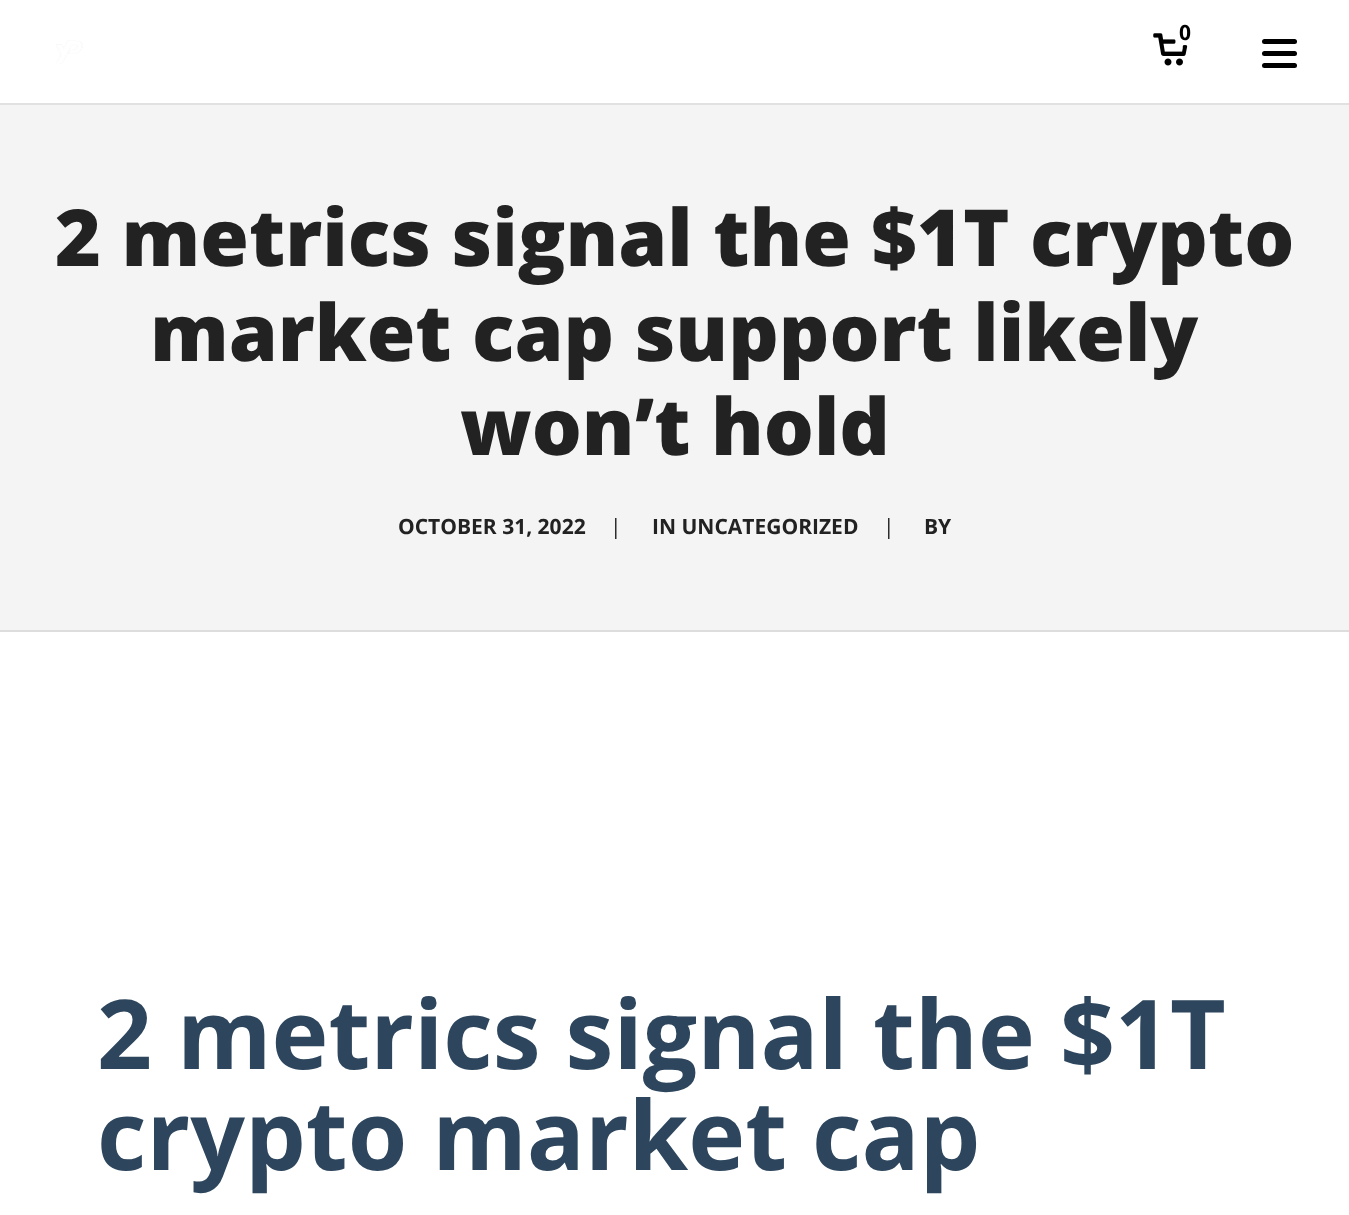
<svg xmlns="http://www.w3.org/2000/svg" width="1349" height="1215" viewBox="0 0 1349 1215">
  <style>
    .t1 { font: bold 21px Open Sans; fill: #000; }
    .t2 { font: 800 78.75px Open Sans; fill: #222; }
    .t3 { font: bold 21px Open Sans; fill: #222; }
    .t4 { font: 21px Open Sans; fill: #222; }
    .t5 { font: bold 96.25px Open Sans; fill: #2d465d; }
  </style>
  <rect width="100%" height="100%" fill="#fff"/>
  <rect x="0" y="103" width="1349" height="2" fill="#e1e1e1"/>
  <text x="1179" y="40" class="t1">0</text>
  <image x="1153" y="33" width="35" height="33" href="images/1.png"/>
  <rect x="1262" y="39" width="35" height="5" rx="2.5" fill="#000"/>
  <rect x="1262" y="51" width="35" height="5" rx="2.5" fill="#000"/>
  <rect x="1262" y="63" width="35" height="5" rx="2.5" fill="#000"/>
  <image x="56" y="40" width="27" height="24" href="images/2.png"/>
  <rect x="0" y="105" width="1349" height="525" fill="#f4f4f4"/>
  <rect x="0" y="630" width="1349" height="2" fill="#ddd"/>
  <text x="55" y="266" class="t2">2 metrics signal the $1T crypto</text>
  <text x="150" y="361" class="t2">market cap support likely</text>
  <text x="460" y="455" class="t2">won’t hold</text>
  <text x="398" y="534" class="t3">OCTOBER 31, 2022</text>
  <text x="610" y="534" class="t4">|</text>
  <text x="652" y="534" class="t3">IN UNCATEGORIZED</text>
  <text x="883" y="534" class="t4">|</text>
  <text x="924" y="534" class="t3">BY</text>
  <text x="97" y="1069" class="t5">2 metrics signal the $1T</text>
  <text x="97" y="1170" class="t5">crypto market cap</text>
</svg>
